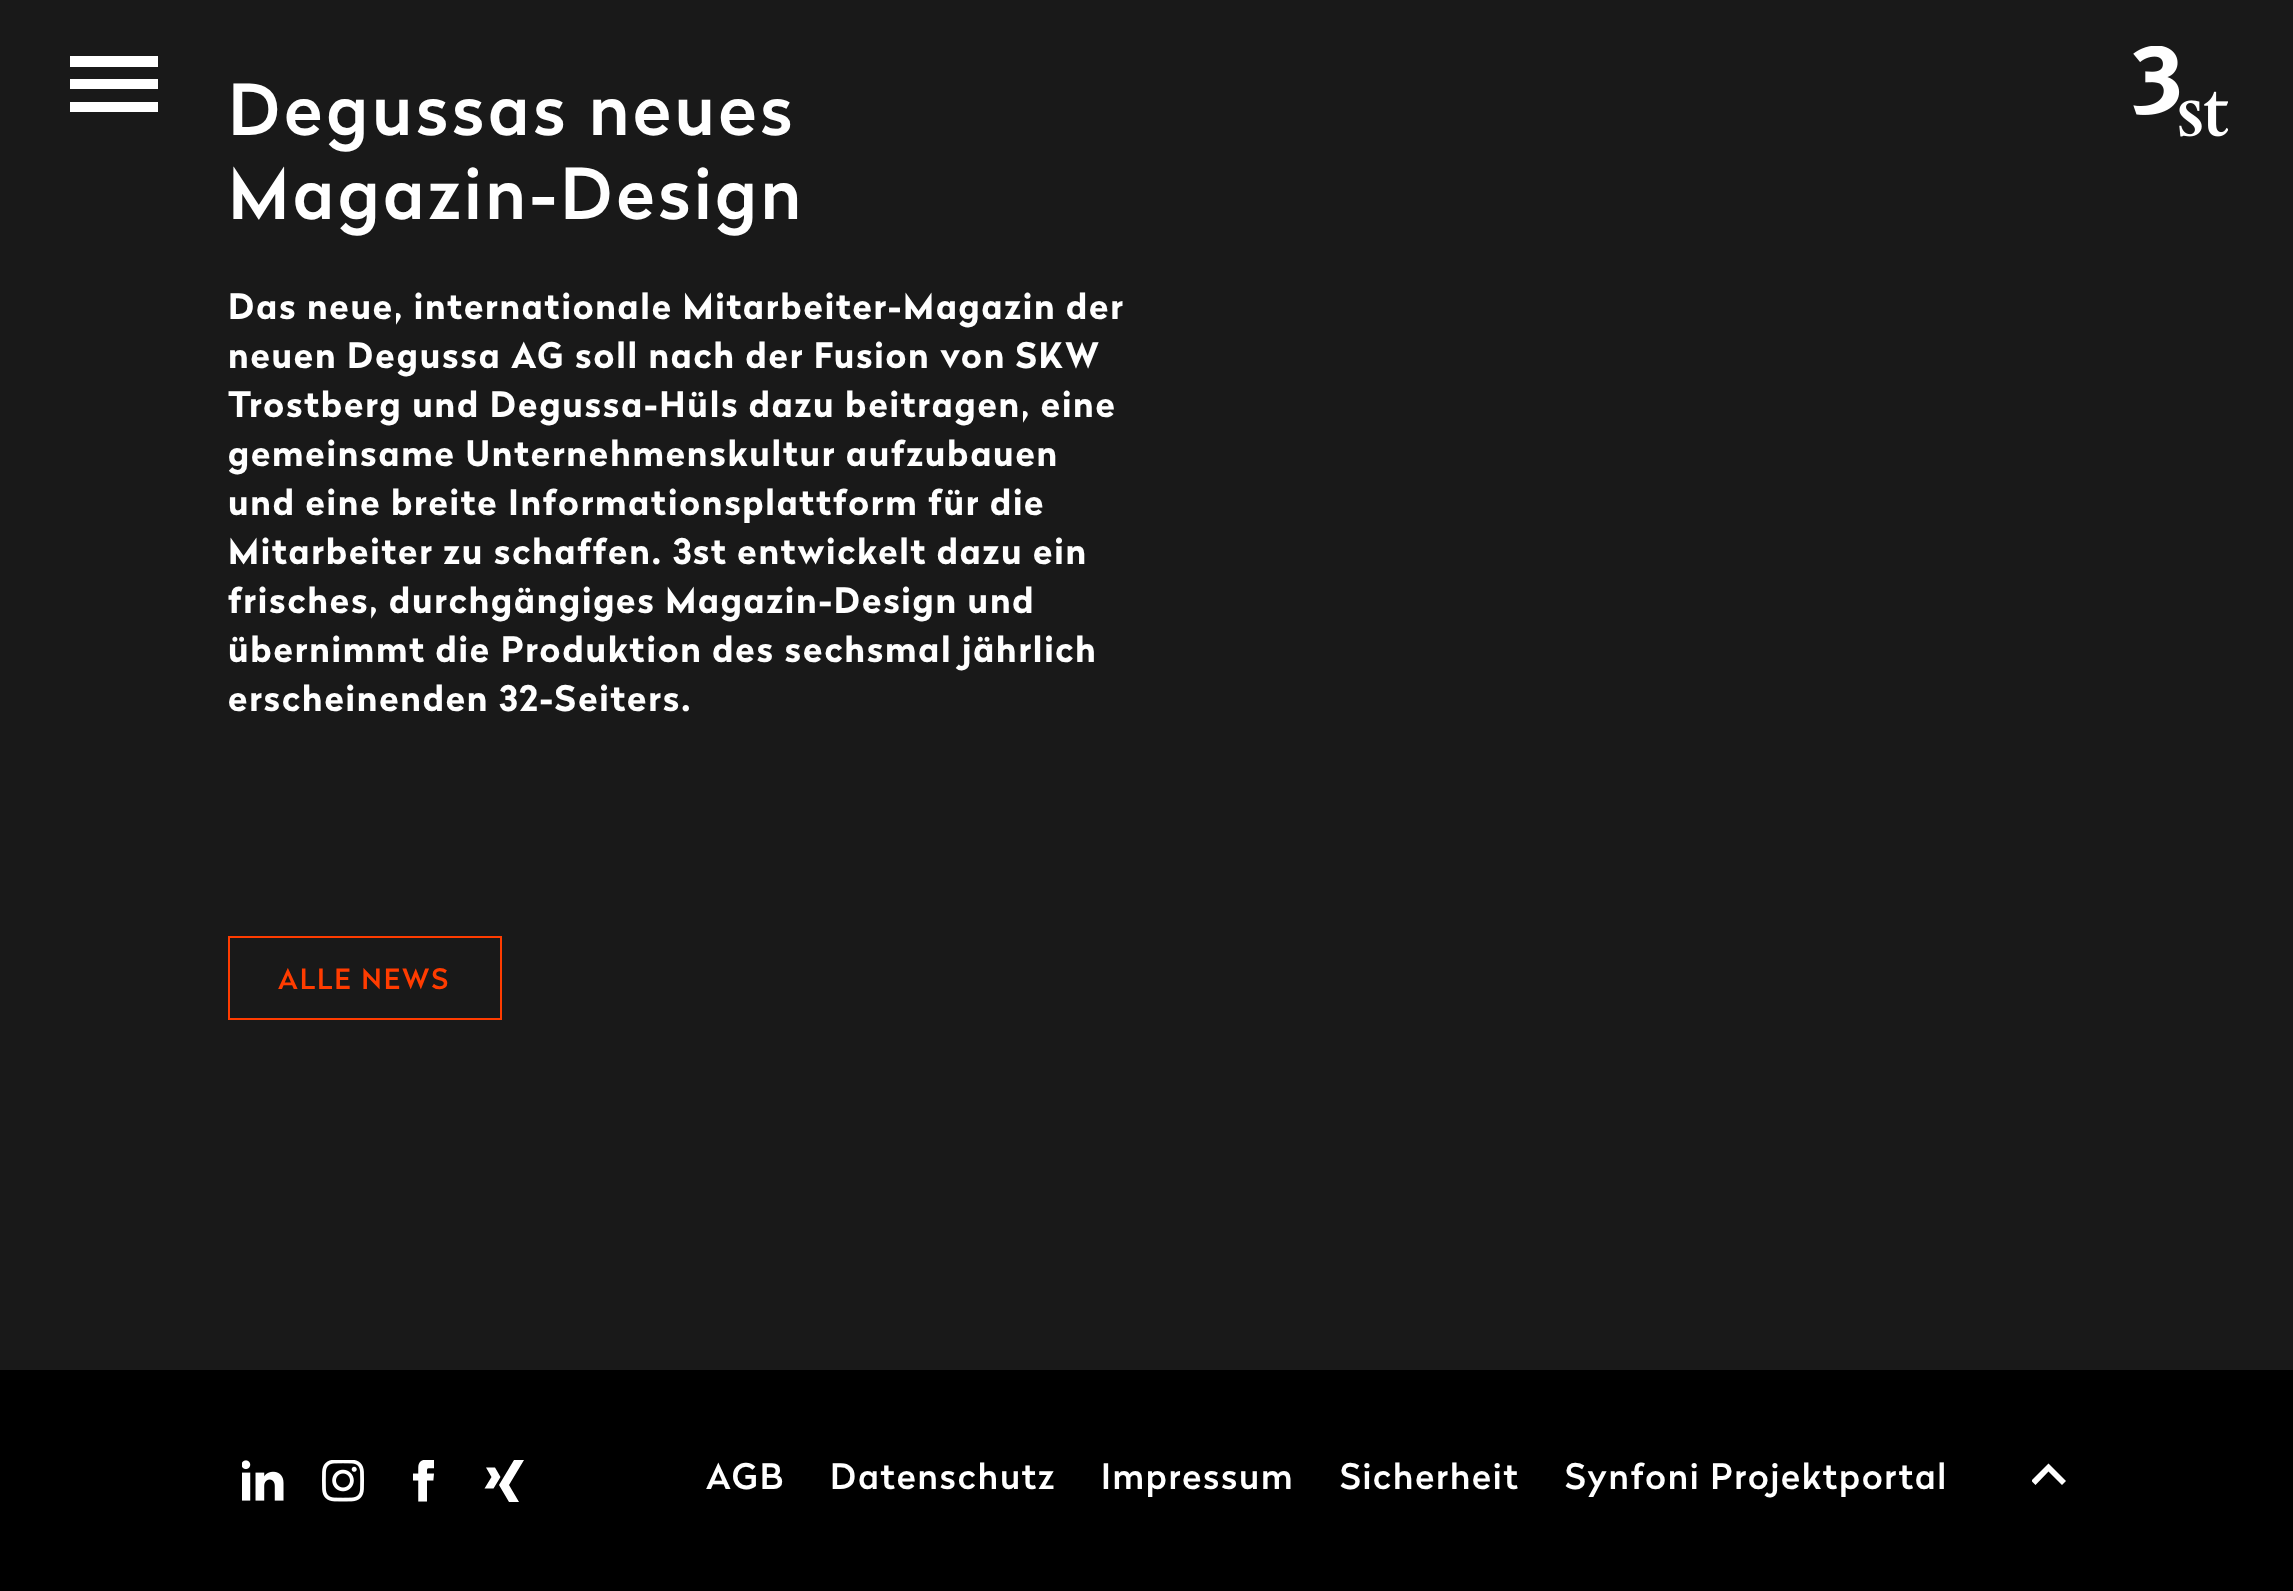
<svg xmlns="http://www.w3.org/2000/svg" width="2293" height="1591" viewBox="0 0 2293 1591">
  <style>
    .t1 { font: 70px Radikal; letter-spacing: 3.5px; fill: #fff; }
    .t2 { font: 35px 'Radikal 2'; letter-spacing: 1.75px; fill: #fff; }
    .t3 { font: 28px Radikal; letter-spacing: 2px; fill: #ff3c00; }
    .t4 { font: 35px Radikal; letter-spacing: 1.75px; fill: #fff; }
  </style>
  <rect width="100%" height="100%" fill="#000"/>
  <rect x="0" y="0" width="2293" height="1370" fill="#191919"/>
  <rect x="70" y="56" width="88" height="11" fill="#fff"/>
  <rect x="70" y="79" width="88" height="10" fill="#fff"/>
  <rect x="70" y="102" width="88" height="10" fill="#fff"/>
  <image x="2133" y="46" width="95" height="91" href="images/1.png"/>
  <text x="228" y="135" class="t1">Degussas neues</text>
  <text x="228" y="219" class="t1">Magazin-Design</text>
  <text x="228" y="319" class="t2">Das neue, internationale Mitarbeiter-Magazin der</text>
  <text x="228" y="368" class="t2">neuen Degussa AG soll nach der Fusion von SKW</text>
  <text x="228" y="417" class="t2">Trostberg und Degussa-Hüls dazu beitragen, eine</text>
  <text x="228" y="466" class="t2">gemeinsame Unternehmenskultur aufzubauen</text>
  <text x="228" y="515" class="t2">und eine breite Informationsplattform für die</text>
  <text x="228" y="564" class="t2">Mitarbeiter zu schaffen. 3st entwickelt dazu ein</text>
  <text x="228" y="613" class="t2">frisches, durchgängiges Magazin-Design und</text>
  <text x="228" y="662" class="t2">übernimmt die Produktion des sechsmal jährlich</text>
  <text x="228" y="711" class="t2">erscheinenden 32-Seiters.</text>
  <rect x="229" y="937" width="272" height="82" fill="none" stroke="#ff3c00" stroke-width="2"/>
  <text x="278" y="989" class="t3">ALLE NEWS</text>
  <image x="242" y="1460" width="42" height="41" href="images/2.png"/>
  <image x="322" y="1460" width="42" height="42" href="images/3.png"/>
  <image x="413" y="1460" width="21" height="42" href="images/4.png"/>
  <path d="M524 1460H514L499 1485L509 1502H519L509 1485Z" fill="#fff"/>
  <path d="M495 1467.5H486L491.5 1477L484.5 1488.5H493.5L500.5 1477Z" fill="#fff"/>
  <text x="706" y="1489" class="t4">AGB</text>
  <text x="830" y="1489" class="t4">Datenschutz</text>
  <text x="1101" y="1489" class="t4">Impressum</text>
  <text x="1340" y="1489" class="t4">Sicherheit</text>
  <text x="1565" y="1489" class="t4">Synfoni Projektportal</text>
  <path d="M2062 1485L2048.5 1471.5L2035.5 1485L2032 1481.5V1480L2048.5 1463.5L2066 1481Z" fill="#fff"/>
</svg>
